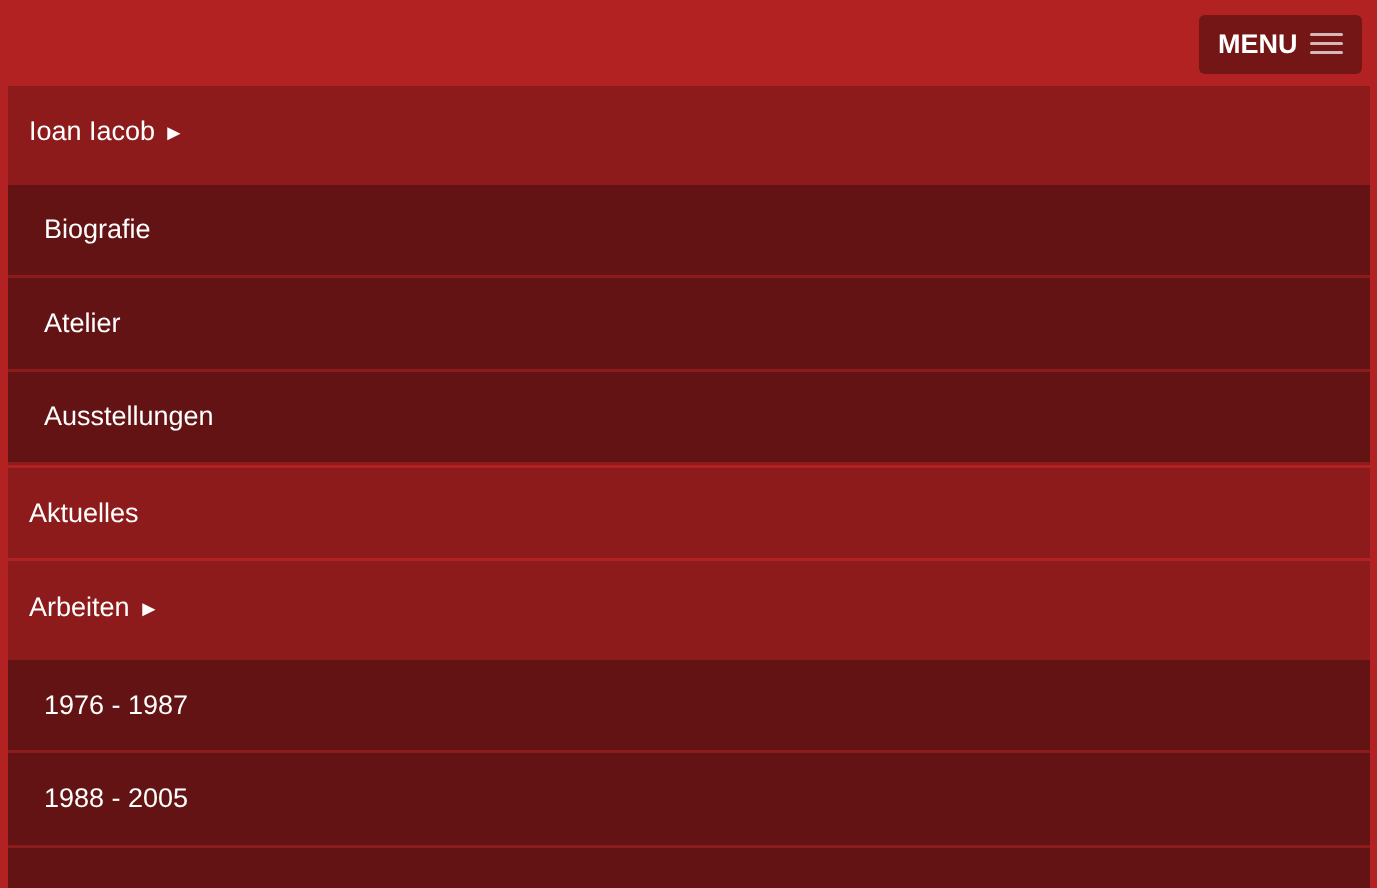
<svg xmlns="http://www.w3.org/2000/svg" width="1377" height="888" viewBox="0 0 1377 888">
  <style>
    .t1 { font: bold 27px Liberation Sans; fill: #fff; }
    .t2 { font: 27px Liberation Sans; fill: #fff; }
    .t3 { font: 22px Liberation Sans; fill: #fff; }
  </style>
  <rect width="100%" height="100%" fill="#b22222"/>
  <rect x="1199" y="15" width="163" height="59" rx="6" fill="#741616"/>
  <text x="1218" y="53" class="t1">MENU</text>
  <rect x="1310" y="33" width="33" height="3" rx="1.5" fill="#d5b9b9"/>
  <rect x="1310" y="42" width="33" height="3" rx="1.5" fill="#d5b9b9"/>
  <rect x="1310" y="51" width="33" height="3" rx="1.5" fill="#d5b9b9"/>
  <rect x="8" y="86" width="1362" height="379" fill="#8d1b1b"/>
  <text x="29" y="140" class="t2">Ioan Iacob</text>
  <text x="163" y="140" class="t3">►</text>
  <rect x="8" y="185" width="1362" height="90" fill="#631313"/>
  <text x="44" y="238" class="t2">Biografie</text>
  <rect x="8" y="278" width="1362" height="91" fill="#631313"/>
  <text x="44" y="332" class="t2">Atelier</text>
  <rect x="8" y="372" width="1362" height="90" fill="#631313"/>
  <text x="44" y="425" class="t2">Ausstellungen</text>
  <rect x="8" y="468" width="1362" height="90" fill="#8e1b1b"/>
  <text x="29" y="522" class="t2">Aktuelles</text>
  <rect x="8" y="561" width="1362" height="287" fill="#8d1b1b"/>
  <text x="29" y="616" class="t2">Arbeiten</text>
  <text x="138" y="616" class="t3">►</text>
  <rect x="8" y="660" width="1362" height="90" fill="#631313"/>
  <text x="44" y="714" class="t2">1976 - 1987</text>
  <rect x="8" y="753" width="1362" height="92" fill="#631313"/>
  <text x="44" y="807" class="t2">1988 - 2005</text>
  <rect x="8" y="848" width="1362" height="40" fill="#631313"/>
</svg>
